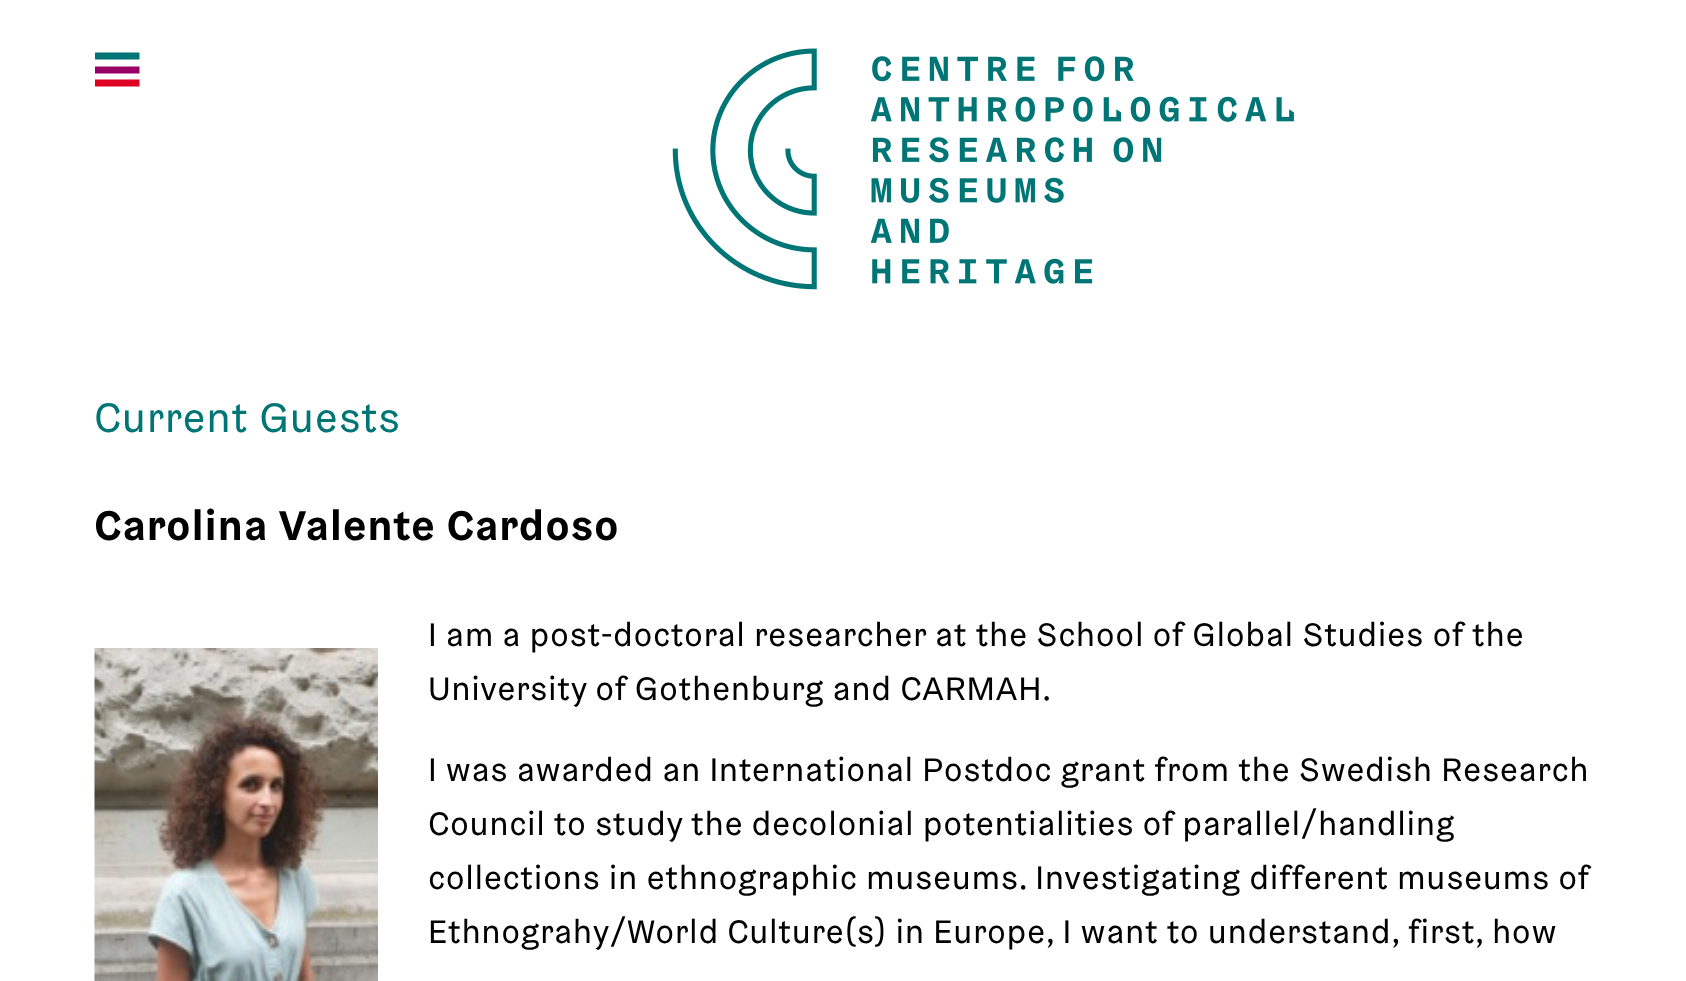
<svg xmlns="http://www.w3.org/2000/svg" width="1686" height="981" viewBox="0 0 1686 981">
  <style>
    .t1 { font: 42.75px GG; letter-spacing: 0.8px; fill: #007575; }
    .t2 { font: bold 42.75px GG; letter-spacing: 0.8px; fill: #000; }
    .t3 { font: 33.75px GG; letter-spacing: 0.67px; fill: #000; }
  </style>
  <defs>
    <clipPath id="clip1"><rect x="95" y="52" width="45" height="36"/></clipPath>
  </defs>
  <rect width="100%" height="100%" fill="#fff"/>
  <g clip-path="url(#clip1)">
    <path d="M94.5 56H139.5" fill="none" stroke="#007575" stroke-width="6.8"/>
    <path d="M94.5 70H139.5" fill="none" stroke="#906" stroke-width="6.8"/>
    <path d="M94.5 83H139.5" fill="none" stroke="#d02" stroke-width="6.8"/>
  </g>
  <image x="672" y="48" width="145" height="242" href="images/1.png"/>
  <image x="871" y="56" width="423" height="228" href="images/2.png"/>
  <text x="94" y="432" class="t1">Current Guests</text>
  <text x="94" y="540" class="t2">Carolina</text>
  <text x="279" y="540" class="t2">Valente Cardoso</text>
  <image x="94" y="648" width="284" height="333" href="images/3.png"/>
  <text x="428" y="646" class="t3">I am a post-doctoral researcher at the School of Global Studies of the</text>
  <text x="428" y="700" class="t3">University of Gothenburg and CARMAH.</text>
  <text x="428" y="781" class="t3">I was awarded an International Postdoc grant from the Swedish Research</text>
  <text x="428" y="835" class="t3">Council to study the decolonial potentialities of parallel/handling</text>
  <text x="428" y="889" class="t3">collections in ethnographic museums. Investigating different museums of</text>
  <text x="428" y="943" class="t3">Ethnograhy/World Culture(s) in Europe, I want to understand, first, how</text>
</svg>
